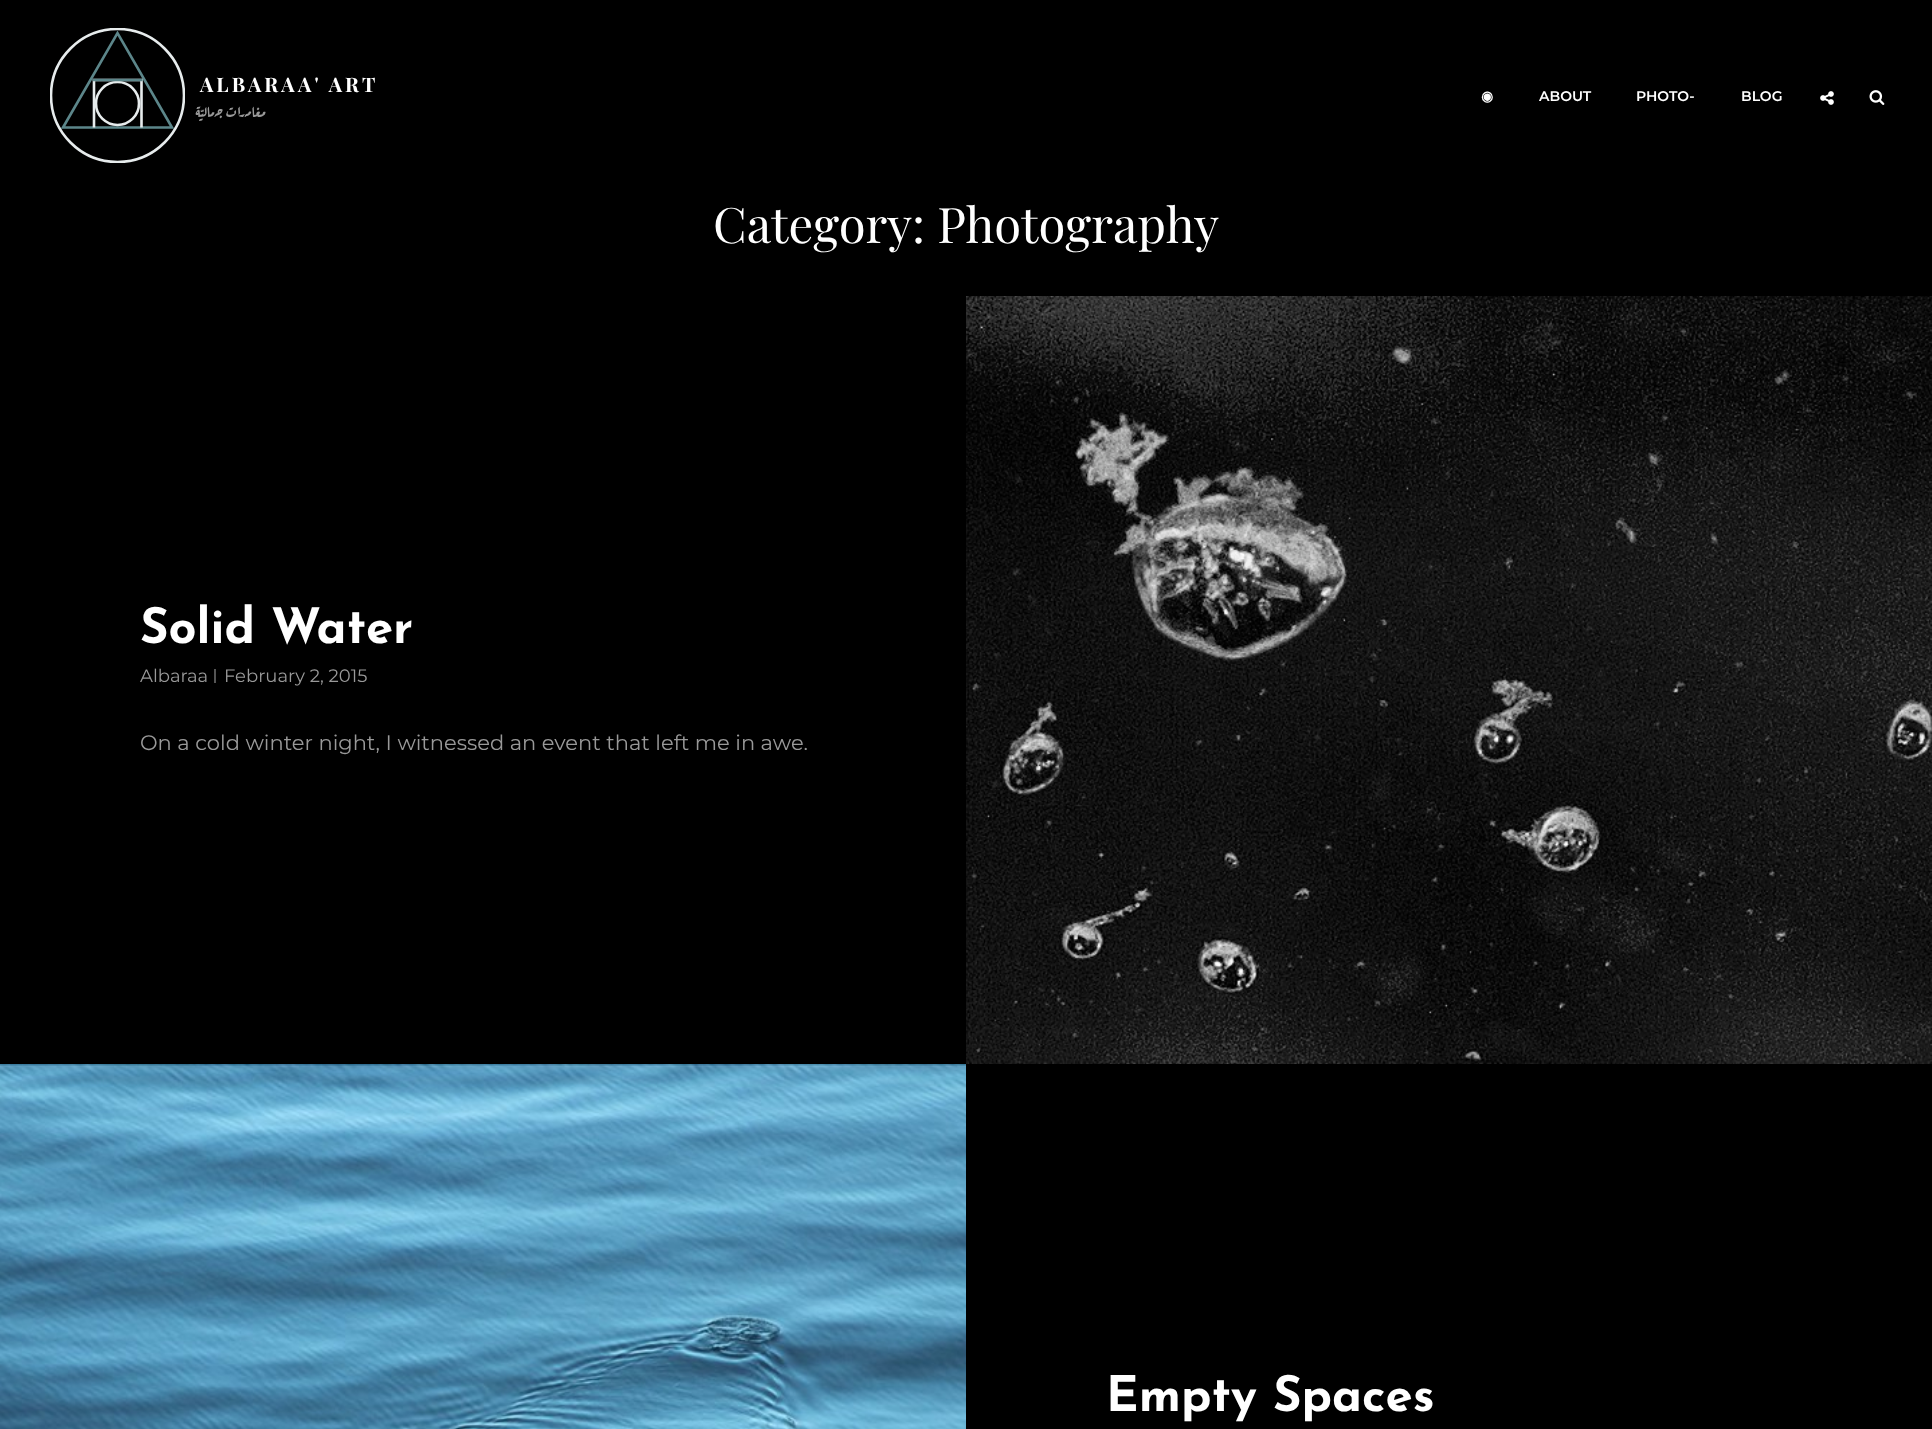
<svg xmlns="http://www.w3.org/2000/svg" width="1932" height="1429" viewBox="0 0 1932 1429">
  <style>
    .t1 { font: bold 20px Playfair Display; letter-spacing: 3.25px; fill: #fff; }
    .t2 { font: bold 15px Aref Ruqaa; direction: rtl; fill: #999; }
    .t3 { font: bold 14px DejaVu Sans; fill: #fff; }
    .t4 { font: 600 14px Montserrat; fill: #fff; }
    .t5 { font: 49px Playfair Display; fill: #fff; }
    .t6 { font: bold 49px Josefin Sans; fill: #fff; }
    .t7 { font: 18px Montserrat; fill: #999; }
    .t8 { font: 21px Montserrat; fill: #999; }
  </style>
  <defs>
    <clipPath id="clip1"><rect x="50" y="28" width="135" height="135"/></clipPath>
  </defs>
  <rect width="100%" height="100%" fill="#000"/>
  <g clip-path="url(#clip1)">
    <circle cx="117.5" cy="95.5" r="66.5" fill="none" stroke="#e7eced" stroke-width="2.6"/>
  </g>
  <path d="M63 127.5L117.5 33L172 127.5Z" fill="none" stroke="#5c868a" stroke-width="2.6"/>
  <path d="M141.5 127.5V80H94V127.5" fill="none" stroke="#e7eced" stroke-width="2.6"/>
  <circle cx="117.5" cy="103.5" r="21.5" fill="none" stroke="#e7eced" stroke-width="2.6"/>
  <path d="M92.5 80H142.5" fill="none" stroke="#5c868a" stroke-width="2.6"/>
  <text x="200" y="92" class="t1">ALBARAA' ART</text>
  <text x="266" y="117" class="t2">مغامرات جماليّة</text>
  <text x="1481" y="101" class="t3">◉</text>
  <text x="1539" y="101" class="t4">ABOUT</text>
  <text x="1636" y="101" class="t4">PHOTO-</text>
  <text x="1741" y="101" class="t4">BLOG</text>
  <image x="1820" y="91" width="14" height="14" href="images/1.png"/>
  <image x="1869" y="90" width="16" height="15" href="images/2.png"/>
  <text x="713" y="243" class="t5">Category: Photography</text>
  <text x="140" y="643" class="t6">Solid Water</text>
  <text x="140" y="682" class="t7">Albaraa</text>
  <rect x="214" y="669" width="2" height="14" fill="#555"/>
  <text x="224" y="682" class="t7">February 2, 2015</text>
  <text x="140" y="750" class="t8">On a cold winter night, I witnessed an event that left me in awe.</text>
  <image x="966" y="296" width="966" height="768" href="images/3.png"/>
  <image x="0" y="1064" width="966" height="365" href="images/4.png"/>
  <text x="1106" y="1411" class="t6">Empty Spaces</text>
</svg>
